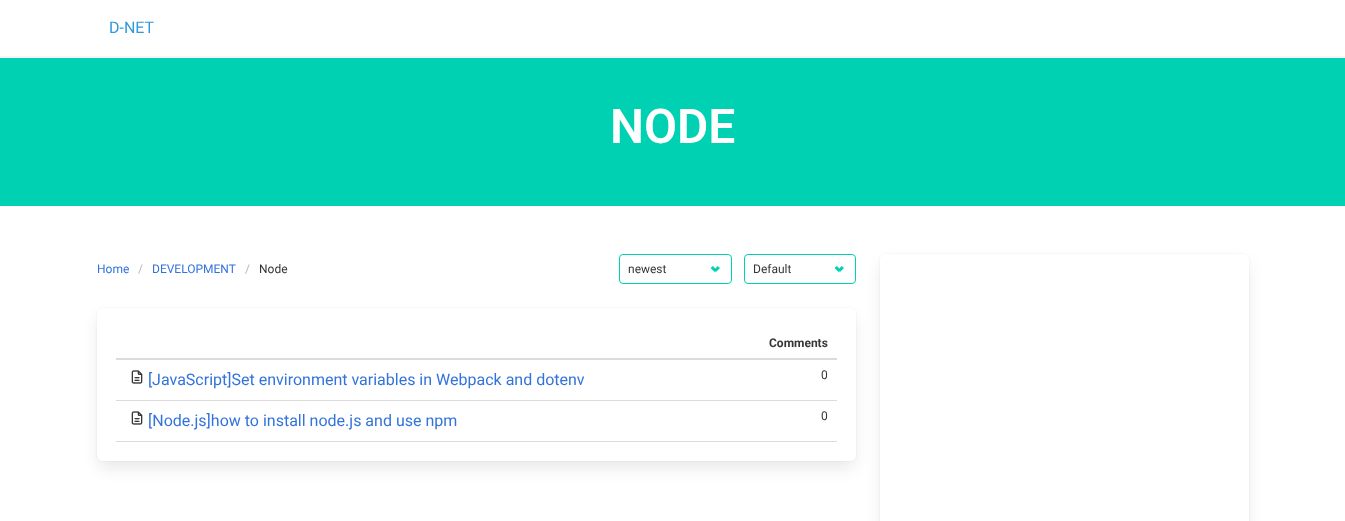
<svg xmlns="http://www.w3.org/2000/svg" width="1345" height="521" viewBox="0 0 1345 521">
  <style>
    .t1 { font: 16px Roboto; fill: #3298dc; }
    .t2 { font: 600 48px Roboto; fill: #fff; }
    .t3 { font: 12px Roboto; fill: #3273dc; }
    .t4 { font: 12px Roboto; fill: #b5b5b5; }
    .t5 { font: 12px Roboto; fill: #363636; }
    .t6 { font: bold 12px Roboto; fill: #363636; }
    .t7 { font: 16px Roboto; fill: #3273dc; }
  </style>
  <rect width="100%" height="100%" fill="#fff"/>
  <rect x="0" y="56" width="1345" height="2" fill="#f5f5f5"/>
  <text x="109" y="33" class="t1">D-NET</text>
  <rect x="0" y="58" width="1345" height="148" fill="#00d1b2"/>
  <text x="610" y="143" class="t2">NODE</text>
  <text x="97" y="273" class="t3">Home</text>
  <text x="138" y="273" class="t4">/</text>
  <text x="152" y="273" class="t3">DEVELOPMENT</text>
  <text x="245" y="273" class="t4">/</text>
  <text x="259" y="273" class="t5">Node</text>
  <rect x="619.5" y="254.5" width="112" height="29" rx="3.5" fill="none" stroke="#00d1b2"/>
  <text x="628" y="273" class="t5">newest</text>
  <path d="M714 270L717.5 266L720 268L716 272Z" fill="#00d1b2"/>
  <path d="M710.5 268L713 266L716.5 270L714.5 272Z" fill="#00d1b2"/>
  <rect x="744.5" y="254.5" width="111" height="29" rx="3.5" fill="none" stroke="#00d1b2"/>
  <text x="753" y="273" class="t5">Default</text>
  <path d="M838 270L841.5 266L844 268L840 272Z" fill="#00d1b2"/>
  <path d="M834.5 268L837 266L840.5 270L838.5 272Z" fill="#00d1b2"/>
  <rect x="96.5" y="307.5" width="760" height="154" rx="6.5" fill="none" stroke="#fafafa"/>
  <rect x="99" y="318" width="755" height="149" rx="4" fill="#0a0a0a1a" filter="blur(8px)"/>
  <rect x="97" y="308" width="759" height="153" rx="6" fill="#fff"/>
  <rect x="116" y="358" width="721" height="2" fill="#dbdbdb"/>
  <text x="769" y="347" class="t6">Comments</text>
  <image x="131" y="370" width="12" height="14" href="images/1.png"/>
  <text x="148" y="385" class="t7">[JavaScript]Set environment variables in Webpack and dotenv</text>
  <rect x="116" y="400" width="721" height="1" fill="#dbdbdb"/>
  <text x="821" y="379" class="t5">0</text>
  <image x="131" y="411" width="12" height="14" href="images/1.png"/>
  <text x="148" y="426" class="t7">[Node.js]how to install node.js and use npm</text>
  <rect x="116" y="441" width="721" height="1" fill="#dbdbdb"/>
  <text x="821" y="420" class="t5">0</text>
  <rect x="879.5" y="253.5" width="370" height="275" rx="6.5" fill="none" stroke="#fafafa"/>
  <rect x="882" y="264" width="365" height="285" rx="4" fill="#0a0a0a1a" filter="blur(8px)"/>
  <rect x="880" y="254" width="369" height="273" rx="6" fill="#fff"/>
</svg>
